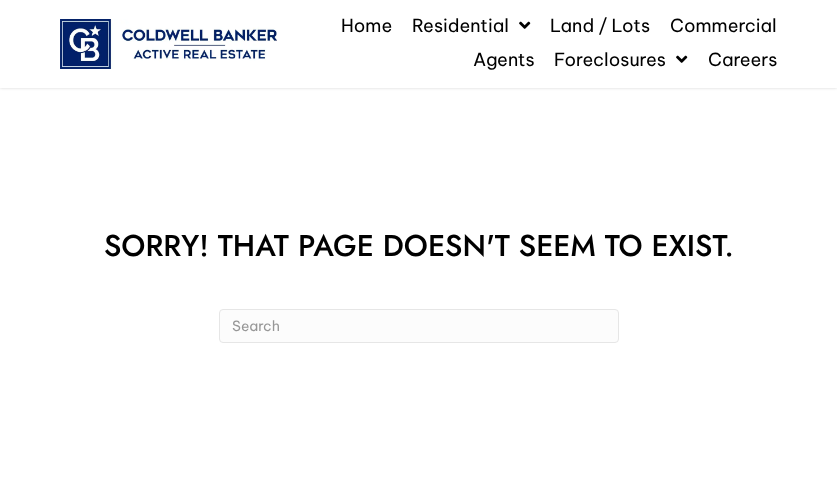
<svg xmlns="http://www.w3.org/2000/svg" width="837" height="488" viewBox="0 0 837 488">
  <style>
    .t1 { font: 18px Be Vietnam Pro; fill: #000; }
    .t2 { font: 500 30px Jost; fill: #000; }
    .t3 { font: 14px Be Vietnam Pro; fill: #979797; }
  </style>
  <rect width="100%" height="100%" fill="#fff"/>
  <rect x="0" y="0" width="837" height="88" fill="#a8a8a880" filter="blur(1.5px)"/>
  <rect x="0" y="0" width="837" height="88" fill="#fff"/>
  <image x="60" y="19" width="217" height="50" href="images/1.png"/>
  <text x="341" y="32" class="t1">Home</text>
  <text x="412" y="32" class="t1">Residential</text>
  <image x="519" y="21" width="12" height="8" href="images/2.png"/>
  <text x="550" y="32" class="t1">Land / Lots</text>
  <text x="670" y="32" class="t1">Commercial</text>
  <text x="473" y="66" class="t1">Agents</text>
  <text x="554" y="66" class="t1">Foreclosures</text>
  <image x="676" y="55" width="12" height="8" href="images/2.png"/>
  <text x="708" y="66" class="t1">Careers</text>
  <text x="104" y="256" class="t2">SORRY! THAT PAGE DOESN'T SEEM TO EXIST.</text>
  <rect x="219.5" y="309.5" width="399" height="33" rx="3.5" fill="#fcfcfc" stroke="#e6e6e6"/>
  <text x="232" y="331" class="t3">Search</text>
</svg>
